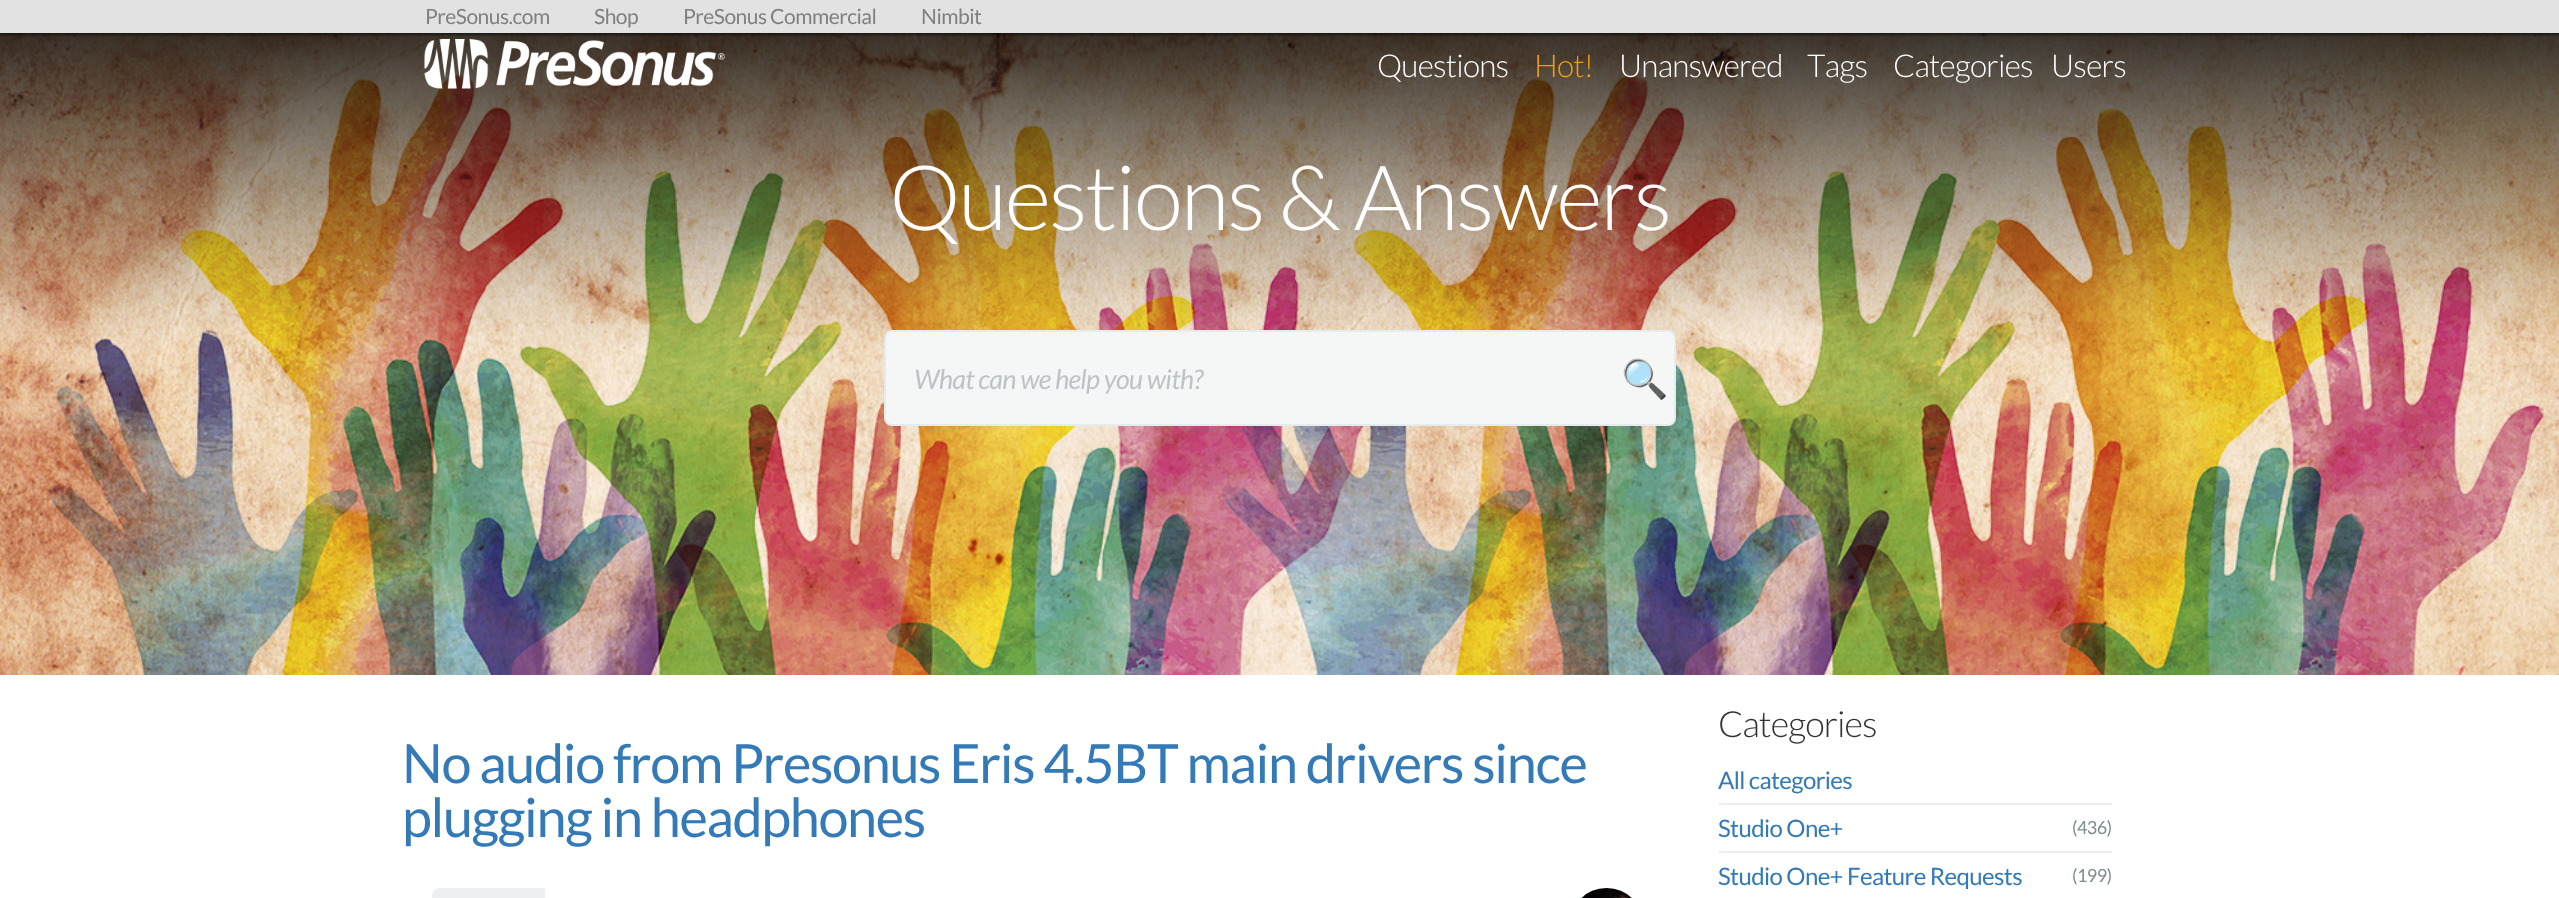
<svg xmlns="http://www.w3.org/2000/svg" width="2559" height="898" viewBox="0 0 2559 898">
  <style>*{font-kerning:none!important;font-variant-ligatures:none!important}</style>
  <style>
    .t1 { font: 21px Lato; letter-spacing: -0.5px; fill: #808080; }
    .t2 { font: 300 31.5px Lato; letter-spacing: -0.75px; fill: #fefefe; }
    .t3 { font: 300 31.5px Lato; letter-spacing: -0.75px; fill: #f39c12; }
    .t4 { font: 300 90px Lato; letter-spacing: -2.25px; fill: #fefefe; }
    .t5 { font: italic 27px Lato; letter-spacing: -0.7px; fill: #bdc3c7; }
    .t6 { font: 38px Noto Color Emoji; letter-spacing: -0.5px; fill: #ccc; }
    .t7 { font: 54px Lato; letter-spacing: -1.35px; fill: #337ab7; }
    .t8 { font: 300 36px Lato; letter-spacing: -1px; fill: #333; }
    .t9 { font: 24px Lato; letter-spacing: -0.6px; fill: #337ab7; }
    .t10 { font: 18px Lato; letter-spacing: -0.5px; fill: #7f8c8d; }
  </style>
  <rect width="100%" height="100%" fill="#fff"/>
  <image x="0" y="33" width="2559" height="642" href="images/2.png"/>
  <rect x="-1" y="-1" width="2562" height="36" fill="#00000080" filter="blur(1px)"/>
  <rect x="0" y="0" width="2559" height="33" fill="#e2e2e2"/>
  <text x="425" y="24" class="t1">PreSonus.com</text>
  <text x="594" y="24" class="t1">Shop</text>
  <text x="683" y="24" class="t1">PreSonus Commercial</text>
  <text x="921" y="24" class="t1">Nimbit</text>
  <image x="424" y="39" width="301" height="50" href="images/1.png"/>
  <text x="1377" y="77" class="t2">Questions</text>
  <text x="1534" y="77" class="t3">Hot!</text>
  <text x="1619" y="77" class="t2">Unanswered</text>
  <text x="1807" y="77" class="t2">Tags</text>
  <text x="1893" y="77" class="t2">Categories</text>
  <text x="2051" y="77" class="t2">Users</text>
  <text x="889" y="230" class="t4">Questions &amp; Answers</text>
  <rect x="885" y="331" width="790" height="94" rx="7" fill="#f5f7f7" stroke="#e6ebed" stroke-width="2"/>
  <text x="914" y="389" class="t5">What can we help you with?</text>
  <text x="1621" y="392" class="t6">🔍</text>
  <text x="402" y="783" class="t7">No audio from Presonus Eris 4.5BT main drivers since</text>
  <text x="402" y="837" class="t7">plugging in headphones</text>
  <path d="M440 888H545V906H440C435.5 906 432 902.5 432 898V896C432 891.5 435.5 888 440 888Z" fill="#ecf0f1"/>
  <image x="1581" y="888" width="51" height="10" href="images/3.png"/>
  <text x="1718" y="737" class="t8">Categories</text>
  <rect x="1719" y="803" width="393" height="2" fill="#ecf0f1"/>
  <text x="1718" y="789" class="t9">All categories</text>
  <rect x="1719" y="851" width="393" height="2" fill="#ecf0f1"/>
  <text x="1718" y="837" class="t9">Studio One+</text>
  <text x="2072" y="834" class="t10">(436)</text>
  <text x="1718" y="885" class="t9">Studio One+ Feature Requests</text>
  <text x="2072" y="882" class="t10">(199)</text>
</svg>
